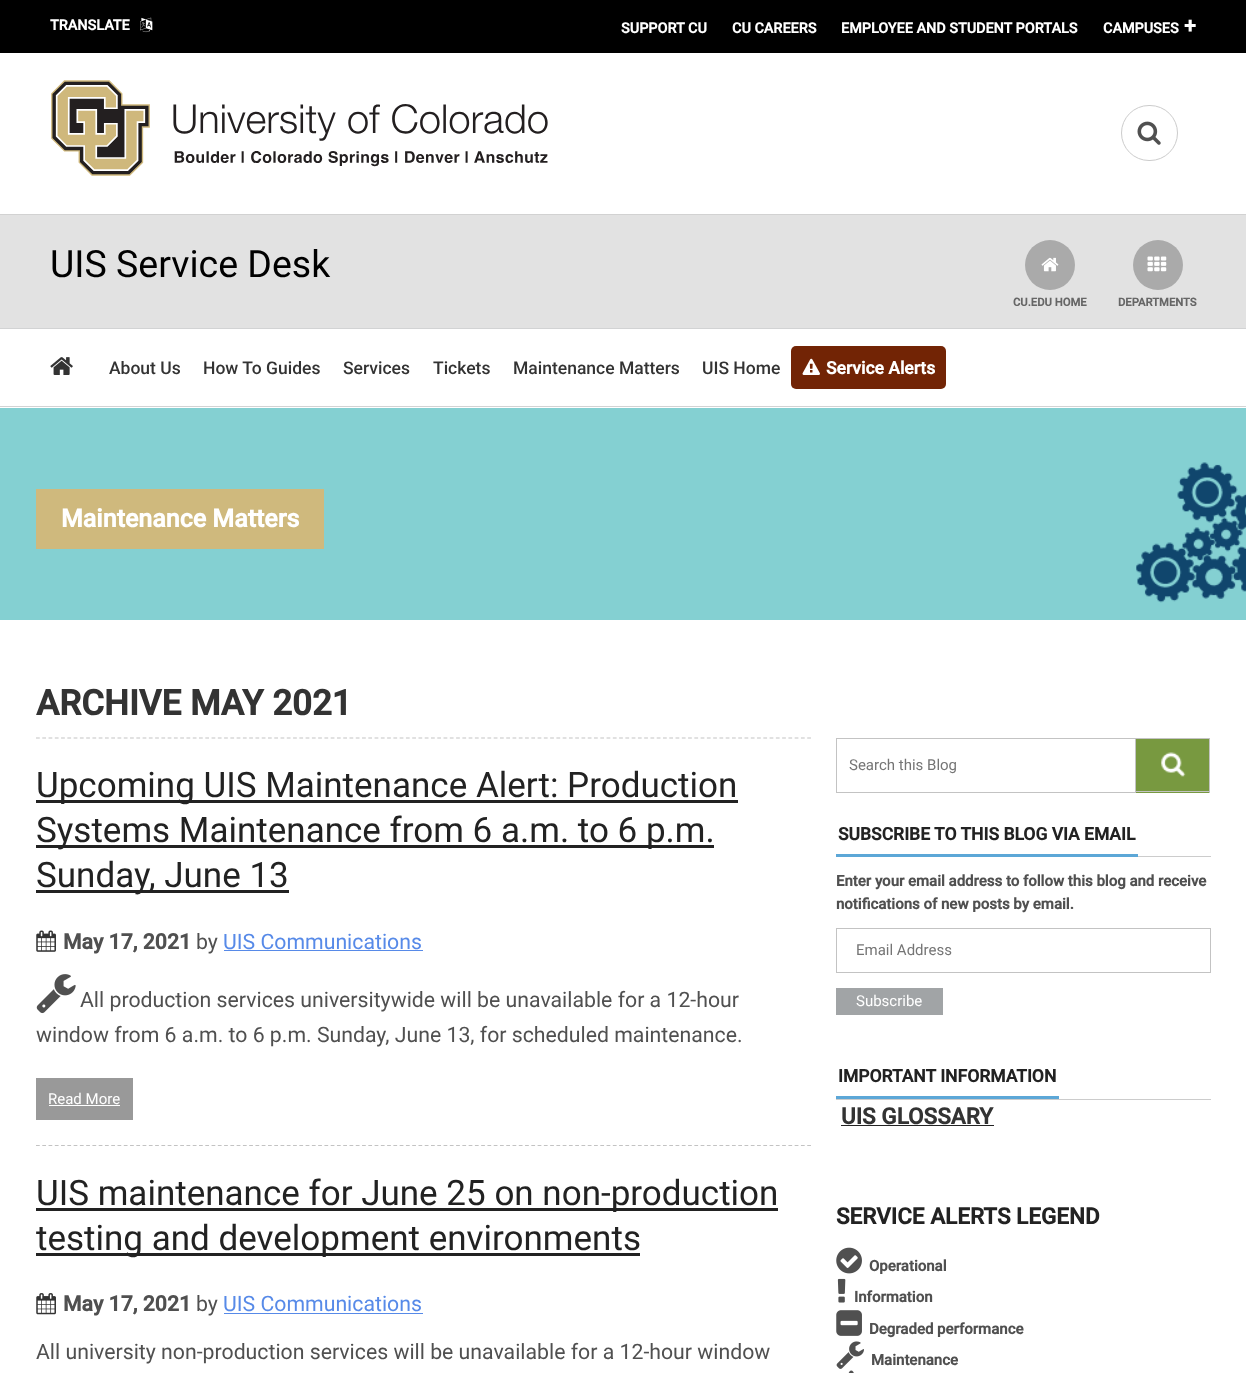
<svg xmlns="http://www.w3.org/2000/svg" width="1246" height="1373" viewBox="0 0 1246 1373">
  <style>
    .t1 { font: bold 14.4px Roboto; fill: #fff; }
    .t2 { font: bold 21.25px Roboto; fill: #fff; }
    .t3 { font: 37.5px Roboto; fill: #000; }
    .t4 { font: bold 11.25px Roboto; fill: #666; }
    .t5 { font: 500 17.5px Roboto; fill: #333; }
    .t6 { font: bold 17.5px Roboto; fill: #fff; }
    .t7 { font: bold 25px Roboto; fill: #fff; }
    .t8 { font: bold 35px Roboto; fill: #333; }
    .t9 { font: 35px Roboto; fill: #222; }
    .t10 { font: bold 21.25px Roboto; fill: #505050; }
    .t11 { font: 21.25px Roboto; fill: #505050; }
    .t12 { font: 21.25px Roboto; fill: #578ae8; }
    .t13 { font: 15px Roboto; fill: #fff; }
    .t14 { font: 15px Roboto; fill: #757575; }
    .t15 { font: bold 17.5px Roboto; fill: #222; }
    .t16 { font: bold 15px Roboto; fill: #505050; }
    .t17 { font: bold 22.5px Roboto; fill: #333; }
    .t18 { font: bold 22.5px Roboto; fill: #222; }
  </style>
  <rect width="100%" height="100%" fill="#fff"/>
  <rect x="0" y="0" width="1246" height="53" fill="#000"/>
  <text x="50" y="30" class="t1">TRANSLATE</text>
  <image x="140" y="17" width="13" height="16" href="images/1.png"/>
  <text x="621" y="33" class="t1">SUPPORT CU</text>
  <text x="732" y="33" class="t1">CU CAREERS</text>
  <text x="841" y="33" class="t1">EMPLOYEE AND STUDENT PORTALS</text>
  <text x="1103" y="33" class="t1">CAMPUSES</text>
  <text x="1184" y="33" class="t2">+</text>
  <image x="51" y="80" width="497" height="96" href="images/2.png"/>
  <rect x="1121.5" y="105.5" width="56" height="55" rx="27.5" fill="none" stroke="#ccc"/>
  <image x="1137" y="121" width="24" height="24" href="images/3.png"/>
  <rect x="0" y="215" width="1246" height="113" fill="#e2e2e2"/>
  <rect x="0" y="214" width="1246" height="1" fill="#d2d2d2"/>
  <text x="50" y="277" class="t3">UIS Service Desk</text>
  <circle cx="1050" cy="265" r="25" fill="#aaa"/>
  <image x="1041" y="257" width="18" height="15" href="images/4.png"/>
  <text x="1013" y="306" class="t4">CU.EDU HOME</text>
  <circle cx="1158" cy="265" r="25" fill="#aaa"/>
  <image x="1147" y="256" width="20" height="16" href="images/5.png"/>
  <text x="1118" y="306" class="t4">DEPARTMENTS</text>
  <rect x="0" y="328" width="1246" height="1" fill="#d2d3d4"/>
  <rect x="0" y="406" width="1246" height="1" fill="#d2d3d4"/>
  <image x="50" y="357" width="23" height="18" href="images/6.png"/>
  <text x="109" y="374" class="t5">About Us</text>
  <text x="203" y="374" class="t5">How To Guides</text>
  <text x="343" y="374" class="t5">Services</text>
  <text x="433" y="374" class="t5">Tickets</text>
  <text x="513" y="374" class="t5">Maintenance Matters</text>
  <text x="702" y="374" class="t5">UIS Home</text>
  <rect x="791" y="346" width="155" height="43" rx="5" fill="#722405"/>
  <image x="802" y="358" width="18" height="17" href="images/7.png"/>
  <text x="826" y="374" class="t6">Service Alerts</text>
  <image x="0" y="408" width="1246" height="212" href="images/8.png"/>
  <rect x="36" y="489" width="288" height="60" fill="#cfb97d"/>
  <text x="61" y="527" class="t7">Maintenance Matters</text>
  <text x="36" y="715" class="t8">ARCHIVE MAY 2021</text>
  <path d="M36 738H811" fill="none" stroke="#c3c3c3" stroke-width="1.2" stroke-dasharray="3.75 2.52"/>
  <path d="M36 1145.5H811" fill="none" stroke="#c3c3c3" stroke-width="1.2" stroke-dasharray="3.75 2.52"/>
  <rect x="36" y="800" width="702" height="3" fill="#222"/>
  <text x="36" y="797" class="t9">Upcoming UIS Maintenance Alert: Production</text>
  <rect x="36" y="845" width="678" height="3" fill="#222"/>
  <text x="36" y="842" class="t9">Systems Maintenance from 6 a.m. to 6 p.m.</text>
  <rect x="36" y="890" width="253" height="3" fill="#222"/>
  <text x="36" y="887" class="t9">Sunday, June 13</text>
  <image x="36" y="930" width="20" height="22" href="images/9.png"/>
  <text x="63" y="949" class="t10">May 17, 2021</text>
  <text x="196" y="949" class="t11">by</text>
  <text x="223" y="949" class="t12">UIS Communications</text>
  <rect x="224" y="950" width="199" height="1" fill="#578ae8"/>
  <image x="36" y="974" width="40" height="40" href="images/10.png"/>
  <text x="80" y="1007" class="t11">All production services universitywide will be unavailable for a 12-hour</text>
  <text x="36" y="1042" class="t11">window from 6 a.m. to 6 p.m. Sunday, June 13, for scheduled maintenance.</text>
  <rect x="36" y="1078" width="97" height="42" fill="#999"/>
  <text x="48" y="1104" class="t13">Read More</text>
  <rect x="49" y="1105" width="71" height="1" fill="#fff"/>
  <rect x="36" y="1208" width="742" height="3" fill="#222"/>
  <text x="36" y="1205" class="t9">UIS maintenance for June 25 on non-production</text>
  <rect x="36" y="1253" width="604" height="3" fill="#222"/>
  <text x="36" y="1250" class="t9">testing and development environments</text>
  <image x="36" y="1293" width="20" height="22" href="images/11.png"/>
  <text x="63" y="1311" class="t10">May 17, 2021</text>
  <text x="196" y="1311" class="t11">by</text>
  <text x="223" y="1311" class="t12">UIS Communications</text>
  <rect x="224" y="1313" width="199" height="1" fill="#578ae8"/>
  <text x="36" y="1359" class="t11">All university non-production services will be unavailable for a 12-hour window</text>
  <rect x="836.5" y="738.5" width="299" height="54" fill="none" stroke="#c3c3c3"/>
  <text x="849" y="770" class="t14">Search this Blog</text>
  <rect x="1136" y="739" width="73" height="54" fill="#789940"/>
  <image x="1161" y="752" width="25" height="25" href="images/12.png"/>
  <rect x="1136" y="738" width="74" height="1" fill="#c3c3c3"/>
  <rect x="1209" y="738" width="1" height="55" fill="#c3c3c3"/>
  <rect x="1136" y="791" width="74" height="1" fill="#c3c3c3"/>
  <rect x="1138" y="856" width="73" height="1" fill="#ccc"/>
  <rect x="836" y="854" width="302" height="3" fill="#5ca7d7"/>
  <text x="838" y="840" class="t15">SUBSCRIBE TO THIS BLOG VIA EMAIL</text>
  <text x="836" y="886" class="t16">Enter your email address to follow this blog and receive</text>
  <text x="836" y="909" class="t16">notifications of new posts by email.</text>
  <rect x="836.5" y="928.5" width="374" height="44" fill="none" stroke="#c3c3c3"/>
  <text x="856" y="955" class="t14">Email Address</text>
  <rect x="836" y="988" width="107" height="27" fill="#a1a4a6"/>
  <text x="856" y="1006" class="t13">Subscribe</text>
  <rect x="836" y="1099" width="375" height="1" fill="#ccc"/>
  <rect x="836" y="1096" width="223" height="3" fill="#5ca7d7"/>
  <text x="838" y="1082" class="t15">IMPORTANT INFORMATION</text>
  <text x="841" y="1124" class="t17">UIS GLOSSARY</text>
  <rect x="841" y="1125" width="153" height="1" fill="#222"/>
  <text x="836" y="1224" class="t18">SERVICE ALERTS LEGEND</text>
  <image x="836" y="1247" width="26" height="27" href="images/13.png"/>
  <text x="869" y="1271" class="t16">Operational</text>
  <image x="837" y="1278" width="9" height="25" href="images/14.png"/>
  <text x="854" y="1302" class="t16">Information</text>
  <image x="836" y="1310" width="26" height="26" href="images/15.png"/>
  <text x="869" y="1334" class="t16">Degraded performance</text>
  <image x="836" y="1341" width="28" height="28" href="images/16.png"/>
  <text x="871" y="1365" class="t16">Maintenance</text>
  <image x="848" y="1370" width="6" height="3" href="images/17.png"/>
</svg>
